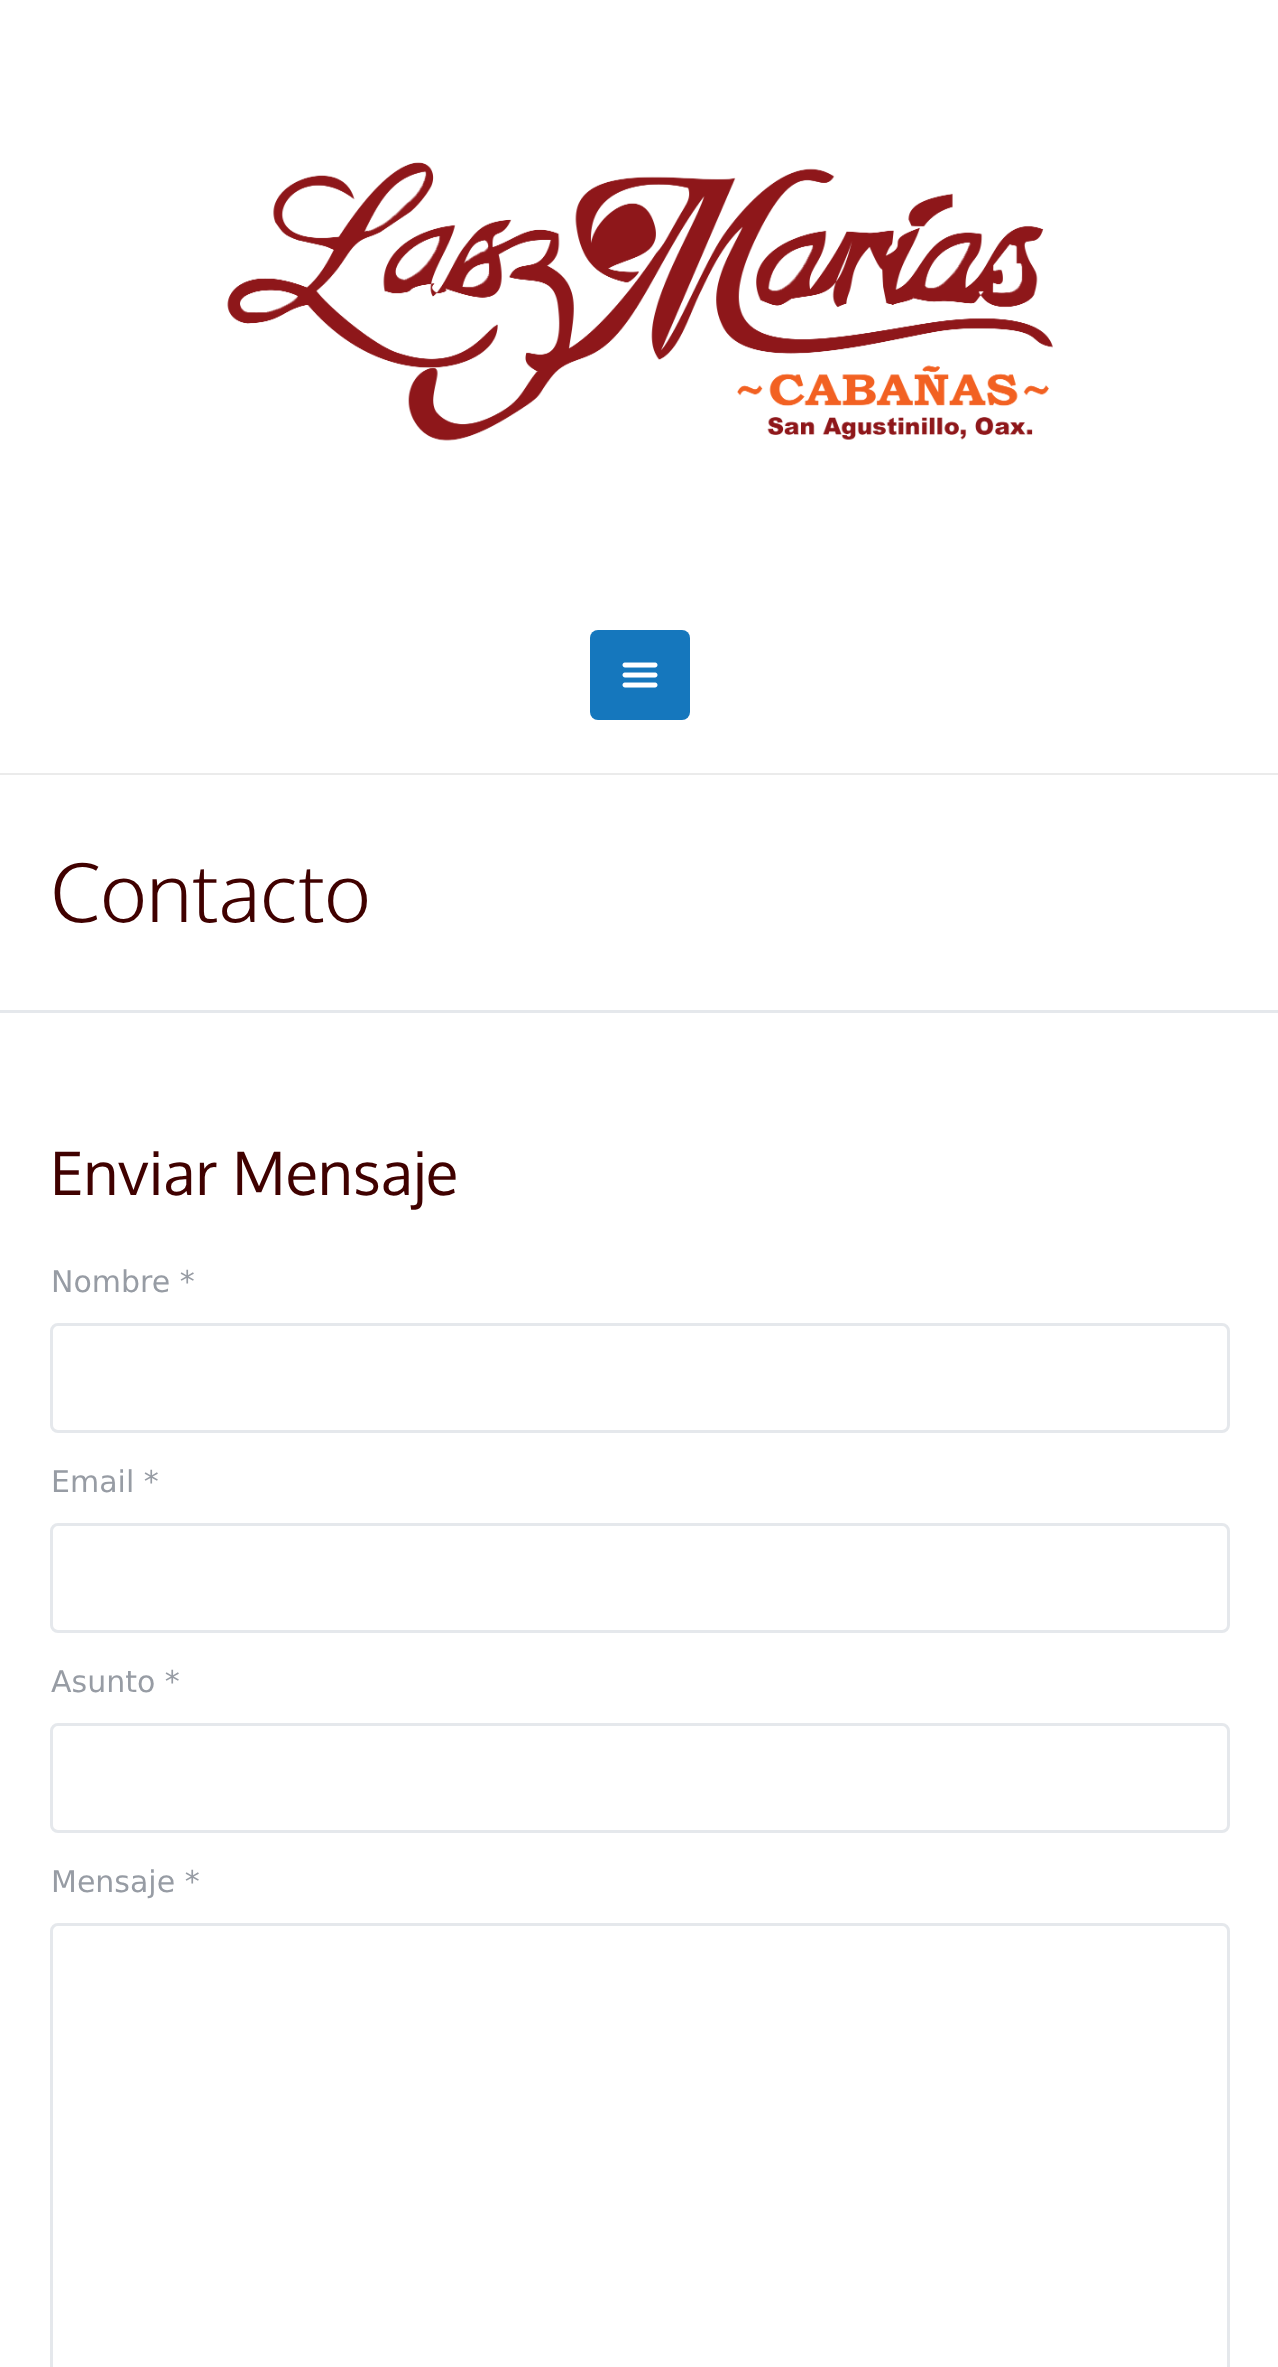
<svg xmlns="http://www.w3.org/2000/svg" width="1278" height="2367" viewBox="0 0 1278 2367">
  <style>
    .t1 { font: 300 80px Oxygen; fill: #400100; }
    .t2 { font: 60px Oxygen; fill: #400100; }
    .t3 { font: 30px DejaVu Sans; fill: #979ca4; }
  </style>
  <rect width="100%" height="100%" fill="#fff"/>
  <rect x="0" y="773" width="1278" height="2" fill="#ebebeb"/>
  <image x="227" y="162" width="826" height="279" href="images/1.png"/>
  <rect x="590" y="630" width="100" height="90" rx="8" fill="#1577bd"/>
  <image x="622" y="662" width="36" height="26" href="images/2.png"/>
  <rect x="0" y="1010" width="1278" height="3" fill="#e5e8ec"/>
  <text x="50" y="922" class="t1">Contacto</text>
  <text x="50" y="1195" class="t2">Enviar Mensaje</text>
  <text x="51" y="1292" class="t3">Nombre *</text>
  <rect x="51.5" y="1324.5" width="1177" height="107" rx="6.5" fill="none" stroke="#e5e8ec" stroke-width="3"/>
  <text x="51" y="1492" class="t3">Email *</text>
  <rect x="51.5" y="1524.5" width="1177" height="107" rx="6.5" fill="none" stroke="#e5e8ec" stroke-width="3"/>
  <text x="51" y="1692" class="t3">Asunto *</text>
  <rect x="51.5" y="1724.5" width="1177" height="107" rx="6.5" fill="none" stroke="#e5e8ec" stroke-width="3"/>
  <text x="51" y="1892" class="t3">Mensaje *</text>
  <rect x="51.5" y="1924.5" width="1177" height="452" rx="6.5" fill="none" stroke="#e5e8ec" stroke-width="3"/>
</svg>
